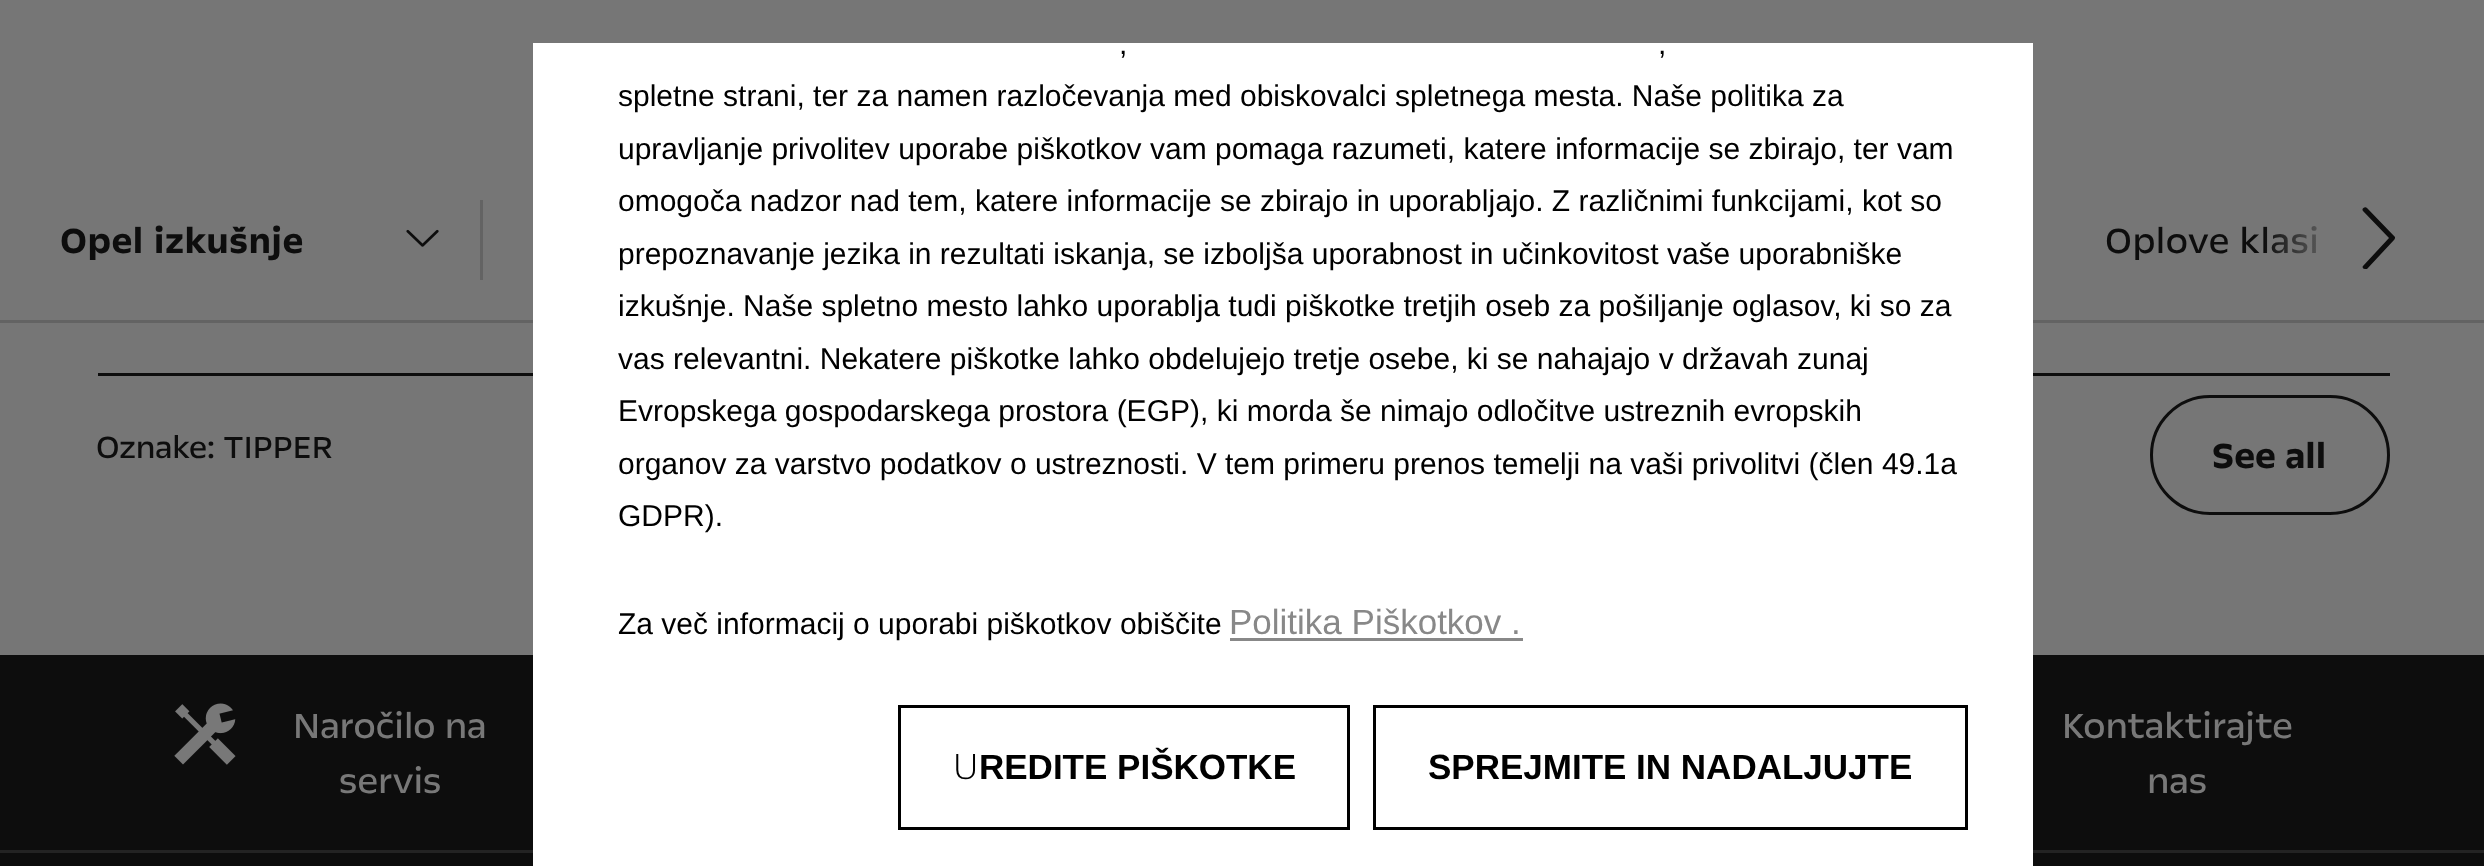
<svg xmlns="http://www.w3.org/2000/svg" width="2484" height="866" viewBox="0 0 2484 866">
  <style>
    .t1 { font: 30px Liberation Sans; fill: #000; }
    .t2 { font: 35px Liberation Sans; fill: #888; }
    .t3 { font: 300 35px Noto Sans; fill: #000; }
    .t4 { font: bold 35px Liberation Sans; fill: #000; }
    .t5 { font: bold 40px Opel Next; letter-spacing: 0.5px; fill: #0d0d0d; }
    .t6 { font: 40px Opel Next; letter-spacing: 0.5px; fill: #0d0d0d; }
    .t7 { font: 35px Opel Next; fill: #0d0d0d; }
    .t8 { font: bold 40px Opel Next; fill: #0d0d0d; }
    .t9 { font: 40px Opel Next; fill: #787878; }
  </style>
  <defs>
    <linearGradient id="g1" gradientUnits="userSpaceOnUse" x1="2423" y1="240" x2="2263" y2="240"><stop offset="0.5" stop-color="#767676"/><stop offset="1" stop-color="#767676" stop-opacity="0"/></linearGradient>
  </defs>
  <rect width="100%" height="100%" fill="#767676"/>
  <rect x="0" y="320" width="2484" height="3" fill="#636363"/>
  <rect x="98" y="373" width="2292" height="3" fill="#0d0d0d"/>
  <rect x="0" y="655" width="2484" height="211" fill="#0d0d0d"/>
  <rect x="0" y="850" width="2484" height="3" fill="#232323"/>
  <rect x="533" y="43" width="1500" height="823" fill="#fff"/>
  <text x="1119" y="54" class="t1">,</text>
  <text x="1658" y="54" class="t1">,</text>
  <text x="618" y="106" class="t1">spletne strani, ter za namen razločevanja med obiskovalci spletnega mesta. Naše politika za</text>
  <text x="618" y="159" class="t1">upravljanje privolitev uporabe piškotkov vam pomaga razumeti, katere informacije se zbirajo, ter vam</text>
  <text x="618" y="211" class="t1">omogoča nadzor nad tem, katere informacije se zbirajo in uporabljajo. Z različnimi funkcijami, kot so</text>
  <text x="618" y="264" class="t1">prepoznavanje jezika in rezultati iskanja, se izboljša uporabnost in učinkovitost vaše uporabniške</text>
  <text x="618" y="316" class="t1">izkušnje. Naše spletno mesto lahko uporablja tudi piškotke tretjih oseb za pošiljanje oglasov, ki so za</text>
  <text x="618" y="369" class="t1">vas relevantni. Nekatere piškotke lahko obdelujejo tretje osebe, ki se nahajajo v državah zunaj</text>
  <text x="618" y="421" class="t1">Evropskega gospodarskega prostora (EGP), ki morda še nimajo odločitve ustreznih evropskih</text>
  <text x="618" y="474" class="t1">organov za varstvo podatkov o ustreznosti. V tem primeru prenos temelji na vaši privolitvi (člen 49.1a</text>
  <text x="618" y="526" class="t1">GDPR).</text>
  <text x="618" y="634" class="t1">Za več informacij o uporabi piškotkov obiščite</text>
  <text x="1229" y="634" class="t2">Politika Piškotkov .</text>
  <rect x="1230" y="638" width="293" height="3" fill="#888"/>
  <rect x="899.5" y="706.5" width="449" height="122" fill="none" stroke="#000" stroke-width="3"/>
  <text x="953" y="779" class="t3">U</text>
  <text x="979" y="779" class="t4">REDITE PIŠKOTKE</text>
  <rect x="1374.5" y="706.5" width="592" height="122" fill="none" stroke="#000" stroke-width="3"/>
  <text x="1428" y="779" class="t4">SPREJMITE IN NADALJUJTE</text>
  <rect x="480" y="200" width="3" height="80" fill="#636363"/>
  <text x="60" y="253" class="t5">Opel izkušnje</text>
  <image x="406" y="229" width="33" height="18" href="images/1.png"/>
  <text x="2105" y="253" class="t6">Oplove klasi</text>
  <rect x="2265" y="226" width="52" height="28" fill="url(#g1)"/>
  <path d="M2394 240L2367 269H2365C2363 269 2362 267 2363 266L2389 238L2363 211C2361 209 2365 206 2367 208L2395 237C2395 238 2395 239 2394 240Z" fill="#0d0d0d"/>
  <text x="96" y="458" class="t7">Oznake: TIPPER</text>
  <rect x="2151.5" y="396.5" width="237" height="117" rx="58.5" fill="none" stroke="#0d0d0d" stroke-width="3"/>
  <text x="2212" y="468" class="t8">See all</text>
  <image x="174" y="703" width="62" height="62" href="images/2.png"/>
  <text x="293" y="738" class="t9">Naročilo na</text>
  <text x="339" y="793" class="t9">servis</text>
  <text x="2062" y="738" class="t9">Kontaktirajte</text>
  <text x="2147" y="793" class="t9">nas</text>
</svg>
